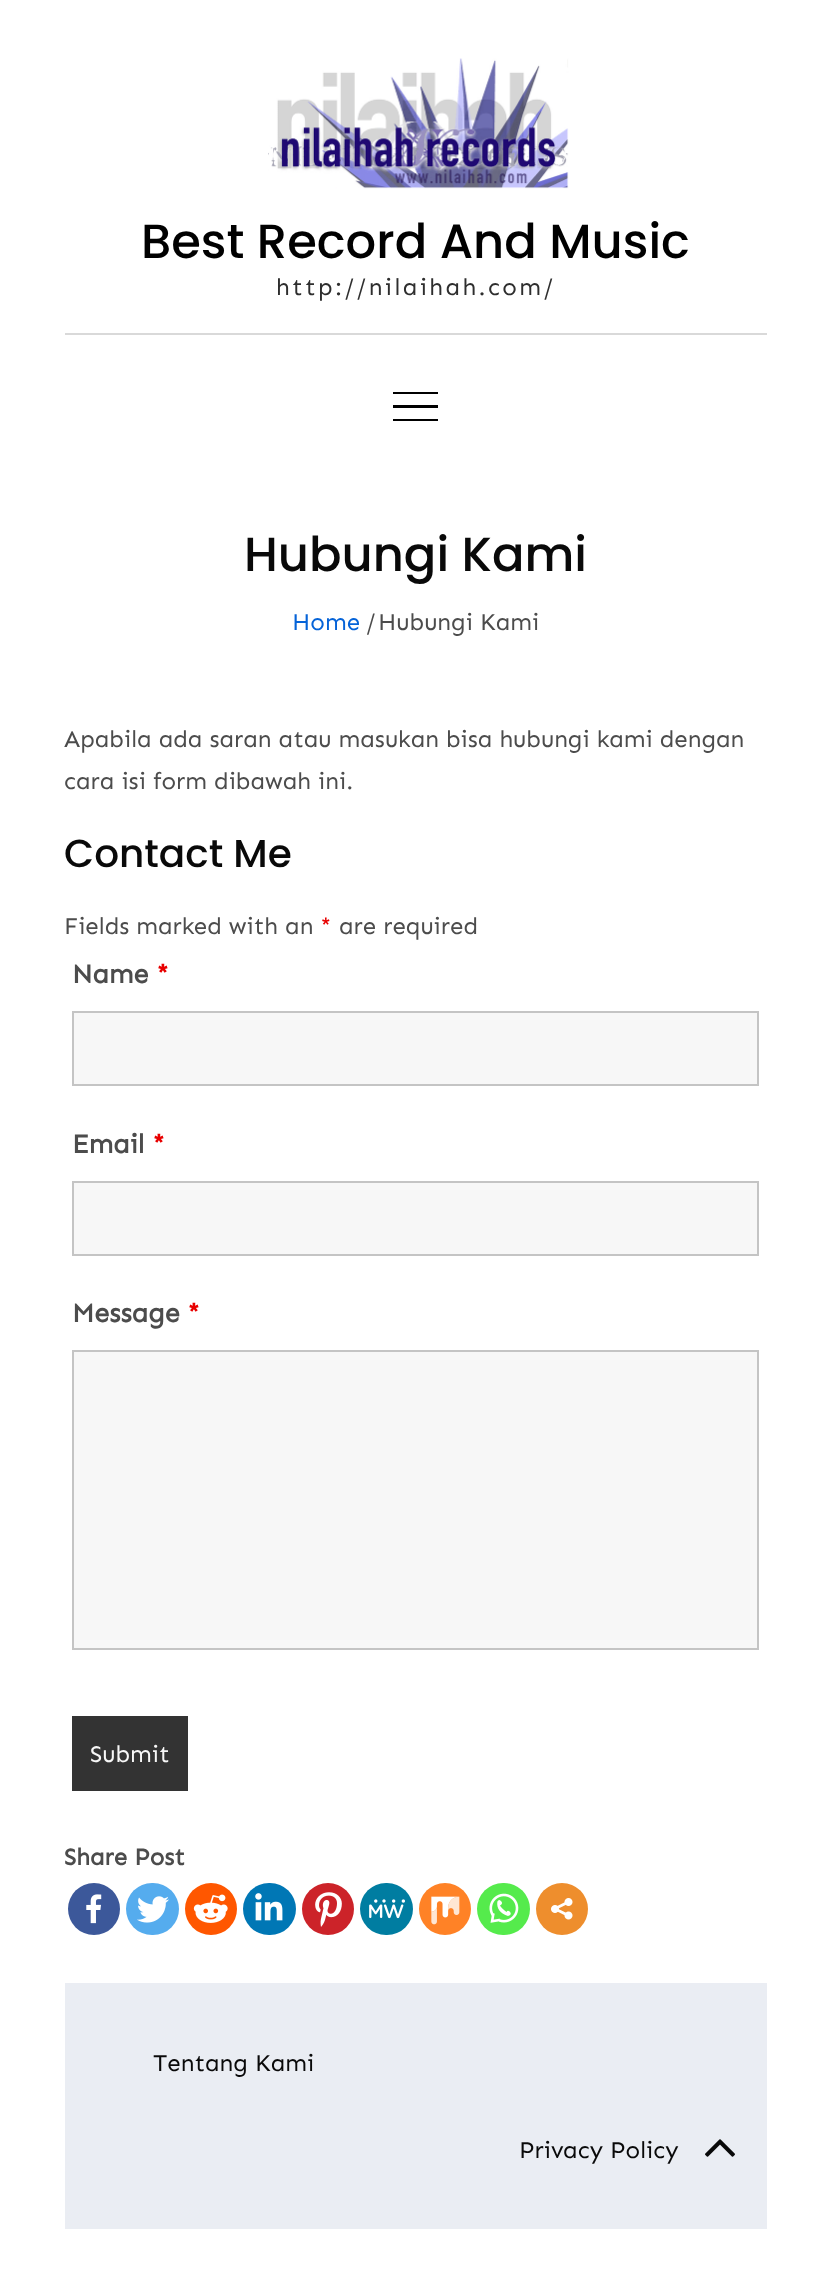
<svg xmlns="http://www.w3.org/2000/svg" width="830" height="2269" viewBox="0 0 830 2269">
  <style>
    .t1 { font: 500 48px Poppins; fill: #000; }
    .t2 { font: 24px Sen; letter-spacing: 2.4px; fill: #2e2e2e; }
    .t3 { font: 500 48px Poppins; fill: #090909; }
    .t4 { font: 24px Sen; fill: #0563d8; }
    .t5 { font: 24px Sen; fill: #4c4c4c; }
    .t6 { font: 500 39px Poppins; fill: #090909; }
    .t7 { font: 24px Sen; fill: #e80000; }
    .t8 { font: bold 27px Sen; fill: #4c4c4c; }
    .t9 { font: bold 27px Sen; fill: #e80000; }
    .t10 { font: 24px Sen; fill: #f7f7f7; }
    .t11 { font: bold 24px Sen; fill: #4c4c4c; }
    .t12 { font: 24px Sen; fill: #090909; }
  </style>
  <rect width="100%" height="100%" fill="#fff"/>
  <rect x="65" y="333" width="702" height="2" fill="#d9d9d9"/>
  <image x="268" y="58" width="301" height="131" href="images/1.png"/>
  <text x="141" y="258" class="t1">Best Record And Music</text>
  <text x="276" y="295" class="t2">http://nilaihah.com/</text>
  <rect x="393" y="392" width="45" height="2" fill="#000"/>
  <rect x="393" y="405" width="45" height="3" fill="#000"/>
  <rect x="393" y="419" width="45" height="2" fill="#000"/>
  <text x="244" y="571" class="t3">Hubungi Kami</text>
  <text x="292" y="630" class="t4">Home</text>
  <text x="366" y="630" class="t5">/</text>
  <text x="378" y="630" class="t5">Hubungi Kami</text>
  <text x="64" y="747" class="t5">Apabila ada saran atau masukan bisa hubungi kami dengan</text>
  <text x="64" y="789" class="t5">cara isi form dibawah ini.</text>
  <text x="64" y="867" class="t6">Contact Me</text>
  <text x="64" y="934" class="t5">Fields marked with an</text>
  <text x="320" y="934" class="t7">*</text>
  <text x="339" y="934" class="t5">are required</text>
  <text x="72" y="983" class="t8">Name</text>
  <text x="156" y="983" class="t9">*</text>
  <rect x="73" y="1012" width="685" height="73" fill="#f7f7f7" stroke="#c4c4c4" stroke-width="2"/>
  <text x="72" y="1153" class="t8">Email</text>
  <text x="152" y="1153" class="t9">*</text>
  <rect x="73" y="1182" width="685" height="73" fill="#f7f7f7" stroke="#c4c4c4" stroke-width="2"/>
  <text x="72" y="1322" class="t8">Message</text>
  <text x="187" y="1322" class="t9">*</text>
  <rect x="73" y="1351" width="685" height="298" fill="#f7f7f7" stroke="#c4c4c4" stroke-width="2"/>
  <rect x="72" y="1716" width="116" height="75" fill="#333"/>
  <text x="90" y="1762" class="t10">Submit</text>
  <text x="64" y="1865" class="t11">Share Post</text>
  <circle cx="94" cy="1909" r="26" fill="#3c589a"/>
  <image x="86" y="1894" width="16" height="30" href="images/2.png"/>
  <rect x="126" y="1883" width="53" height="52" rx="26" fill="#55acee"/>
  <image x="137" y="1896" width="32" height="27" href="images/3.png"/>
  <circle cx="211" cy="1909" r="26" fill="#ff5700"/>
  <image x="193" y="1894" width="35" height="29" href="images/4.png"/>
  <rect x="243" y="1883" width="53" height="52" rx="26" fill="#0077b5"/>
  <image x="255" y="1893" width="28" height="28" href="images/5.png"/>
  <circle cx="328" cy="1909" r="26" fill="#cc2329"/>
  <image x="315" y="1892" width="27" height="35" href="images/6.png"/>
  <rect x="360" y="1883" width="53" height="52" rx="26" fill="#007da1"/>
  <image x="369" y="1899" width="36" height="20" href="images/7.png"/>
  <circle cx="445" cy="1909" r="26" fill="#ff8226"/>
  <image x="431" y="1896" width="29" height="29" href="images/8.png"/>
  <rect x="477" y="1883" width="53" height="52" rx="26" fill="#55eb4c"/>
  <image x="489" y="1893" width="30" height="30" href="images/9.png"/>
  <circle cx="562" cy="1909" r="26" fill="#ee8e2d"/>
  <image x="551" y="1898" width="22" height="22" href="images/10.png"/>
  <rect x="65" y="1983" width="702" height="246" fill="#eaedf3"/>
  <text x="153" y="2071" class="t12">Tentang Kami</text>
  <text x="519" y="2158" class="t12">Privacy Policy</text>
  <image x="705" y="2139" width="30" height="18" href="images/11.png"/>
</svg>
